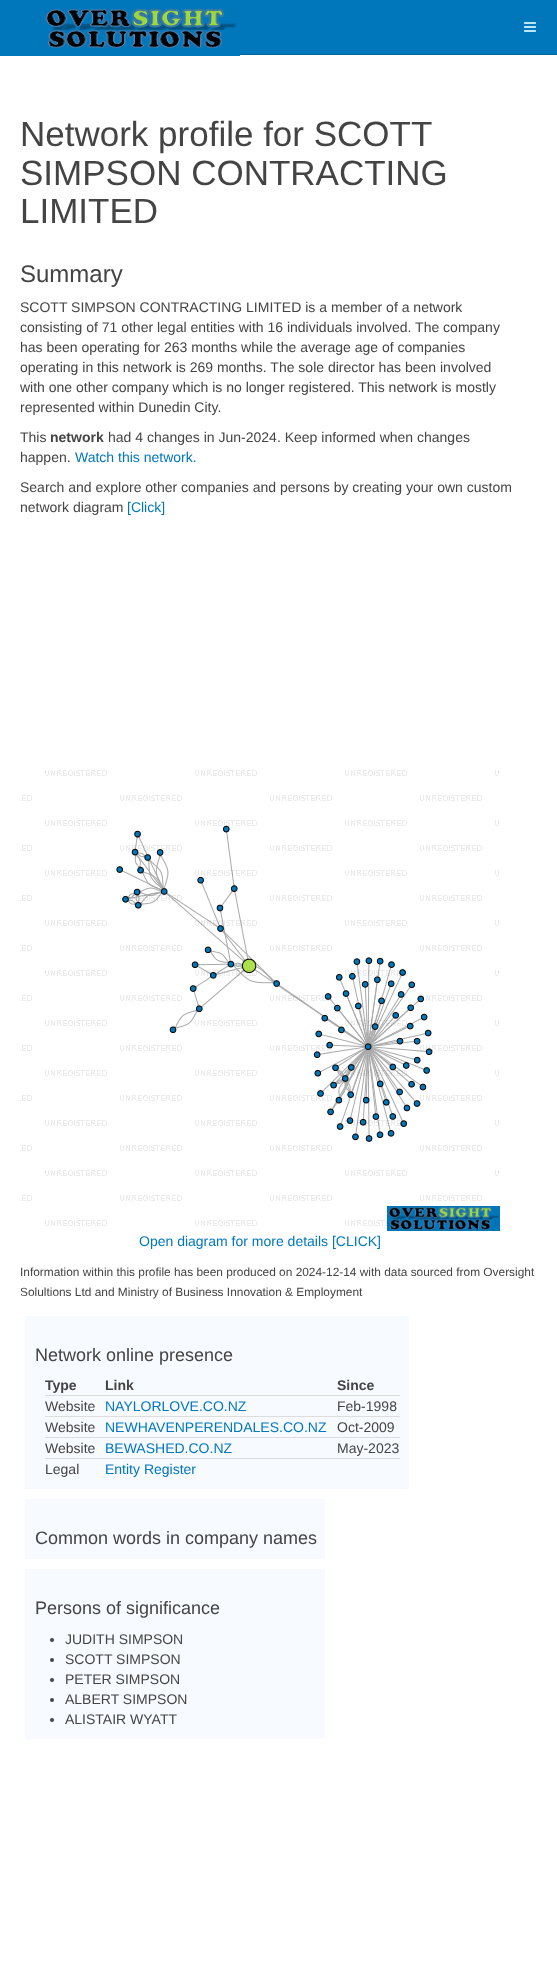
<svg xmlns="http://www.w3.org/2000/svg" width="557" height="1962" viewBox="0 0 557 1962">
  <style>
    .t1 { font: 35px Liberation Sans; fill: #444; }
    .t2 { font: 24px Liberation Sans; fill: #444; }
    .t3 { font: 14px Liberation Sans; fill: #444; }
    .t4 { font: bold 14px Liberation Sans; fill: #444; }
    .t5 { font: 14px Liberation Sans; fill: #07b; }
    .t6 { font: 11.9px Liberation Sans; fill: #444; }
    .t7 { font: 18px Liberation Sans; fill: #444; }
  </style>
  <rect width="100%" height="100%" fill="#fff"/>
  <rect x="240" y="0" width="317" height="54" fill="#07b"/>
  <rect x="240" y="54" width="317" height="1" fill="#0067a2"/>
  <image x="0" y="0" width="240" height="56" href="images/1.png"/>
  <image x="524" y="22" width="12" height="10" href="images/2.png"/>
  <text x="20" y="146" class="t1">Network profile for SCOTT</text>
  <text x="20" y="185" class="t1">SIMPSON CONTRACTING</text>
  <text x="20" y="223" class="t1">LIMITED</text>
  <text x="20" y="282" class="t2">Summary</text>
  <text x="20" y="312" class="t3">SCOTT SIMPSON CONTRACTING LIMITED is a member of a network</text>
  <text x="20" y="332" class="t3">consisting of 71 other legal entities with 16 individuals involved. The company</text>
  <text x="20" y="352" class="t3">has been operating for 263 months while the average age of companies</text>
  <text x="20" y="372" class="t3">operating in this network is 269 months. The sole director has been involved</text>
  <text x="20" y="392" class="t3">with one other company which is no longer registered. This network is mostly</text>
  <text x="20" y="412" class="t3">represented within Dunedin City.</text>
  <text x="20" y="442" class="t3">This</text>
  <text x="50" y="442" class="t4">network</text>
  <text x="108" y="442" class="t3">had 4 changes in Jun-2024. Keep informed when changes</text>
  <text x="20" y="462" class="t3">happen.</text>
  <text x="75" y="462" class="t5">Watch this network.</text>
  <text x="20" y="492" class="t3">Search and explore other companies and persons by creating your own custom</text>
  <text x="20" y="512" class="t3">network diagram</text>
  <text x="127" y="512" class="t5">[Click]</text>
  <image x="20" y="770" width="480" height="461" href="images/3.png"/>
  <text x="139" y="1246" class="t5">Open diagram for more details [CLICK]</text>
  <text x="20" y="1276" class="t6">Information within this profile has been produced on 2024-12-14 with data sourced from Oversight</text>
  <text x="20" y="1296" class="t6">Solultions Ltd and Ministry of Business Innovation &amp; Employment</text>
  <rect x="25" y="1316" width="384" height="173" fill="#f7fafe"/>
  <text x="35" y="1361" class="t7">Network online presence</text>
  <text x="45" y="1390" class="t4">Type</text>
  <text x="105" y="1390" class="t4">Link</text>
  <text x="337" y="1390" class="t4">Since</text>
  <text x="45" y="1411" class="t3">Website</text>
  <text x="105" y="1411" class="t5">NAYLORLOVE.CO.NZ</text>
  <rect x="45" y="1395" width="355" height="1" fill="#ddd"/>
  <text x="337" y="1411" class="t3">Feb-1998</text>
  <text x="45" y="1432" class="t3">Website</text>
  <text x="105" y="1432" class="t5">NEWHAVENPERENDALES.CO.NZ</text>
  <rect x="45" y="1416" width="355" height="1" fill="#ddd"/>
  <text x="337" y="1432" class="t3">Oct-2009</text>
  <text x="45" y="1453" class="t3">Website</text>
  <text x="105" y="1453" class="t5">BEWASHED.CO.NZ</text>
  <rect x="45" y="1437" width="355" height="1" fill="#ddd"/>
  <text x="337" y="1453" class="t3">May-2023</text>
  <rect x="45" y="1458" width="355" height="1" fill="#ddd"/>
  <text x="45" y="1474" class="t3">Legal</text>
  <text x="105" y="1474" class="t5">Entity Register</text>
  <rect x="25" y="1499" width="300" height="60" fill="#f7fafe"/>
  <text x="35" y="1544" class="t7">Common words in company names</text>
  <rect x="25" y="1569" width="300" height="170" fill="#f7fafe"/>
  <text x="35" y="1614" class="t7">Persons of significance</text>
  <circle cx="52" cy="1640" r="2" fill="#444"/>
  <text x="65" y="1644" class="t3">JUDITH SIMPSON</text>
  <circle cx="52" cy="1660" r="2" fill="#444"/>
  <text x="65" y="1664" class="t3">SCOTT SIMPSON</text>
  <circle cx="52" cy="1680" r="2" fill="#444"/>
  <text x="65" y="1684" class="t3">PETER SIMPSON</text>
  <circle cx="52" cy="1700" r="2" fill="#444"/>
  <text x="65" y="1704" class="t3">ALBERT SIMPSON</text>
  <circle cx="52" cy="1720" r="2" fill="#444"/>
  <text x="65" y="1724" class="t3">ALISTAIR WYATT</text>
</svg>
